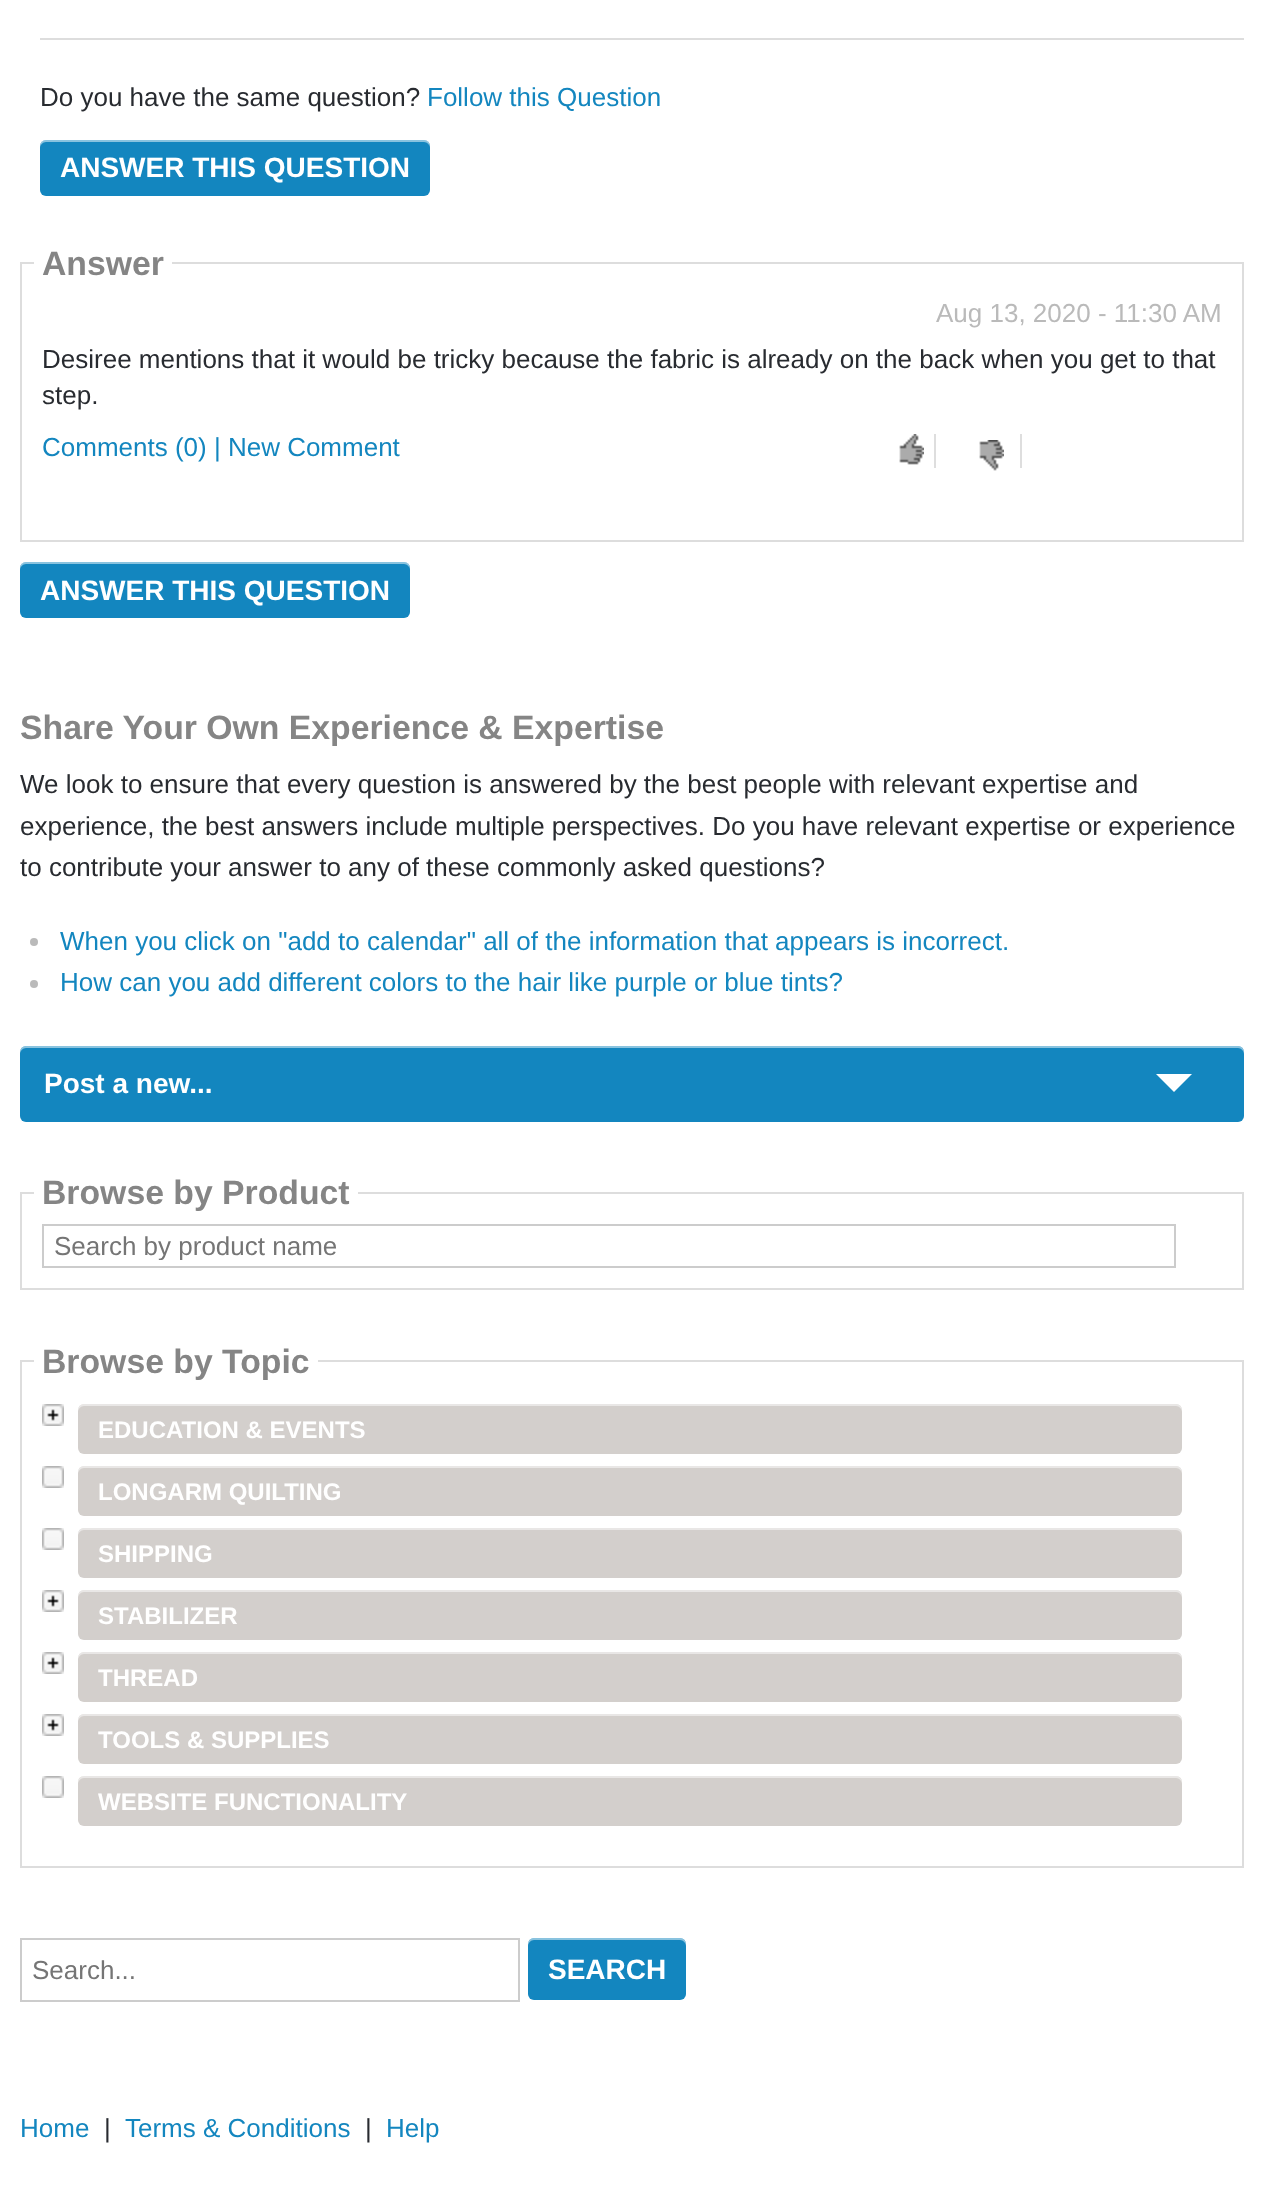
<svg xmlns="http://www.w3.org/2000/svg" width="1263" height="2186" viewBox="0 0 1263 2186">
  <style>
    .t1 { font: 26px Liberation Sans; fill: #282b30; }
    .t2 { font: 26px Liberation Sans; fill: #1386bf; }
    .t3 { font: bold 28px Liberation Sans; fill: #fff; }
    .t4 { font: bold 33.75px Liberation Sans; fill: #858585; }
    .t5 { font: 26px Liberation Sans; fill: #bababa; }
    .t6 { font: 26px Liberation Sans; fill: #757575; }
    .t7 { font: bold 24px Liberation Sans; fill: #fff; }
  </style>
  <defs>
    <clipPath id="clip1"><rect x="54" y="1230" width="1114" height="30"/></clipPath>
  </defs>
  <rect width="100%" height="100%" fill="#fff"/>
  <rect x="40" y="38" width="1204" height="2" fill="#ddd"/>
  <text x="40" y="106" class="t1">Do you have the same question?</text>
  <text x="427" y="106" class="t2">Follow this Question</text>
  <rect x="40" y="140" width="390" height="56" rx="6" fill="#1386bf"/>
  <path d="M46 142H424C427 142 430 145 430 148C430 144 429 140 424 140H46C41 140 40 144 40 148C40 145 43 142 46 142Z" fill="#ffffff80"/>
  <text x="60" y="177" class="t3">ANSWER THIS QUESTION</text>
  <rect x="21" y="263" width="1222" height="278" fill="none" stroke="#ddd" stroke-width="2"/>
  <rect x="34" y="262" width="138" height="2" fill="#fff"/>
  <text x="42" y="275" class="t4">Answer</text>
  <text x="936" y="322" class="t5">Aug 13, 2020 - 11:30 AM</text>
  <text x="42" y="368" class="t1">Desiree mentions that it would be tricky because the fabric is already on the back when you get to that</text>
  <text x="42" y="404" class="t1">step.</text>
  <text x="42" y="456" class="t2">Comments (0) | New Comment</text>
  <rect x="934" y="434" width="2" height="34" fill="#dedede"/>
  <image x="899" y="434" width="25" height="31" href="images/1.png"/>
  <rect x="1020" y="434" width="2" height="34" fill="#dedede"/>
  <image x="979" y="440" width="25" height="31" href="images/2.png"/>
  <rect x="20" y="562" width="390" height="56" rx="6" fill="#1386bf"/>
  <path d="M26 564H404C407 564 410 567 410 570C410 566 409 562 404 562H26C21 562 20 566 20 570C20 567 23 564 26 564Z" fill="#ffffff80"/>
  <text x="40" y="600" class="t3">ANSWER THIS QUESTION</text>
  <text x="20" y="739" class="t4">Share Your Own Experience &amp; Expertise</text>
  <text x="20" y="793" class="t1">We look to ensure that every question is answered by the best people with relevant expertise and</text>
  <text x="20" y="835" class="t1">experience, the best answers include multiple perspectives. Do you have relevant expertise or experience</text>
  <text x="20" y="876" class="t1">to contribute your answer to any of these commonly asked questions?</text>
  <circle cx="34" cy="942" r="4" fill="#bababa"/>
  <text x="60" y="950" class="t2">When you click on "add to calendar" all of the information that appears is incorrect.</text>
  <circle cx="34" cy="984" r="4" fill="#bababa"/>
  <text x="60" y="991" class="t2">How can you add different colors to the hair like purple or blue tints?</text>
  <rect x="20" y="1046" width="1224" height="76" rx="6" fill="#1386bf"/>
  <path d="M26 1048H1238C1241 1048 1244 1051 1244 1054V1052C1244 1049 1241 1046 1238 1046H26C23 1046 20 1049 20 1052V1054C20 1051 23 1048 26 1048Z" fill="#ffffff80"/>
  <text x="44" y="1093" class="t3">Post a new...</text>
  <path d="M1156 1074H1192L1174 1092Z" fill="#fff"/>
  <rect x="21" y="1193" width="1222" height="96" fill="none" stroke="#ddd" stroke-width="2"/>
  <rect x="34" y="1192" width="324" height="2" fill="#fff"/>
  <text x="42" y="1204" class="t4">Browse by Product</text>
  <rect x="43" y="1225" width="1132" height="42" fill="none" stroke="#ccc" stroke-width="2"/>
  <g clip-path="url(#clip1)">
    <text x="54" y="1255" class="t6">Search by product name</text>
  </g>
  <rect x="21" y="1361" width="1222" height="506" fill="none" stroke="#ddd" stroke-width="2"/>
  <rect x="34" y="1360" width="284" height="2" fill="#fff"/>
  <text x="42" y="1373" class="t4">Browse by Topic</text>
  <image x="42" y="1404" width="22" height="22" href="images/3.png"/>
  <rect x="78" y="1404" width="1104" height="50" rx="6" fill="#d3cfcc"/>
  <path d="M84 1406H1176C1179 1406 1182 1409 1182 1412V1410C1182 1407 1179 1404 1176 1404H84C81 1404 78 1407 78 1410V1412C78 1409 81 1406 84 1406Z" fill="#ffffff80"/>
  <text x="98" y="1438" class="t7">EDUCATION &amp; EVENTS</text>
  <image x="42" y="1466" width="22" height="22" href="images/4.png"/>
  <rect x="78" y="1466" width="1104" height="50" rx="6" fill="#d3cfcc"/>
  <path d="M84 1468H1176C1179 1468 1182 1471 1182 1474V1472C1182 1469 1179 1466 1176 1466H84C81 1466 78 1469 78 1472V1474C78 1471 81 1468 84 1468Z" fill="#ffffff80"/>
  <text x="98" y="1500" class="t7">LONGARM QUILTING</text>
  <image x="42" y="1528" width="22" height="22" href="images/4.png"/>
  <rect x="78" y="1528" width="1104" height="50" rx="6" fill="#d3cfcc"/>
  <path d="M84 1530H1176C1179 1530 1182 1533 1182 1536V1534C1182 1531 1179 1528 1176 1528H84C81 1528 78 1531 78 1534V1536C78 1533 81 1530 84 1530Z" fill="#ffffff80"/>
  <text x="98" y="1562" class="t7">SHIPPING</text>
  <image x="42" y="1590" width="22" height="22" href="images/3.png"/>
  <rect x="78" y="1590" width="1104" height="50" rx="6" fill="#d3cfcc"/>
  <path d="M84 1592H1176C1179 1592 1182 1595 1182 1598V1596C1182 1593 1179 1590 1176 1590H84C81 1590 78 1593 78 1596V1598C78 1595 81 1592 84 1592Z" fill="#ffffff80"/>
  <text x="98" y="1624" class="t7">STABILIZER</text>
  <image x="42" y="1652" width="22" height="22" href="images/3.png"/>
  <rect x="78" y="1652" width="1104" height="50" rx="6" fill="#d3cfcc"/>
  <path d="M84 1654H1176C1179 1654 1182 1657 1182 1660V1658C1182 1655 1179 1652 1176 1652H84C81 1652 78 1655 78 1658V1660C78 1657 81 1654 84 1654Z" fill="#ffffff80"/>
  <text x="98" y="1686" class="t7">THREAD</text>
  <image x="42" y="1714" width="22" height="22" href="images/3.png"/>
  <rect x="78" y="1714" width="1104" height="50" rx="6" fill="#d3cfcc"/>
  <path d="M84 1716H1176C1179 1716 1182 1719 1182 1722V1720C1182 1717 1179 1714 1176 1714H84C81 1714 78 1717 78 1720V1722C78 1719 81 1716 84 1716Z" fill="#ffffff80"/>
  <text x="98" y="1748" class="t7">TOOLS &amp; SUPPLIES</text>
  <image x="42" y="1776" width="22" height="22" href="images/4.png"/>
  <rect x="78" y="1776" width="1104" height="50" rx="6" fill="#d3cfcc"/>
  <path d="M84 1778H1176C1179 1778 1182 1781 1182 1784V1782C1182 1779 1179 1776 1176 1776H84C81 1776 78 1779 78 1782V1784C78 1781 81 1778 84 1778Z" fill="#ffffff80"/>
  <text x="98" y="1810" class="t7">WEBSITE FUNCTIONALITY</text>
  <rect x="21" y="1939" width="498" height="62" fill="none" stroke="#ccc" stroke-width="2"/>
  <text x="32" y="1979" class="t6">Search...</text>
  <rect x="528" y="1938" width="158" height="62" rx="6" fill="#1386bf"/>
  <path d="M534 1940H680C683 1940 686 1943 686 1946V1944C686 1941 683 1938 680 1938H534C531 1938 528 1941 528 1944V1946C528 1943 531 1940 534 1940Z" fill="#ffffff80"/>
  <text x="548" y="1979" class="t3">SEARCH</text>
  <text x="20" y="2137" class="t2">Home</text>
  <text x="104" y="2137" class="t1">|</text>
  <text x="125" y="2137" class="t2">Terms &amp; Conditions</text>
  <text x="365" y="2137" class="t1">|</text>
  <text x="386" y="2137" class="t2">Help</text>
</svg>
